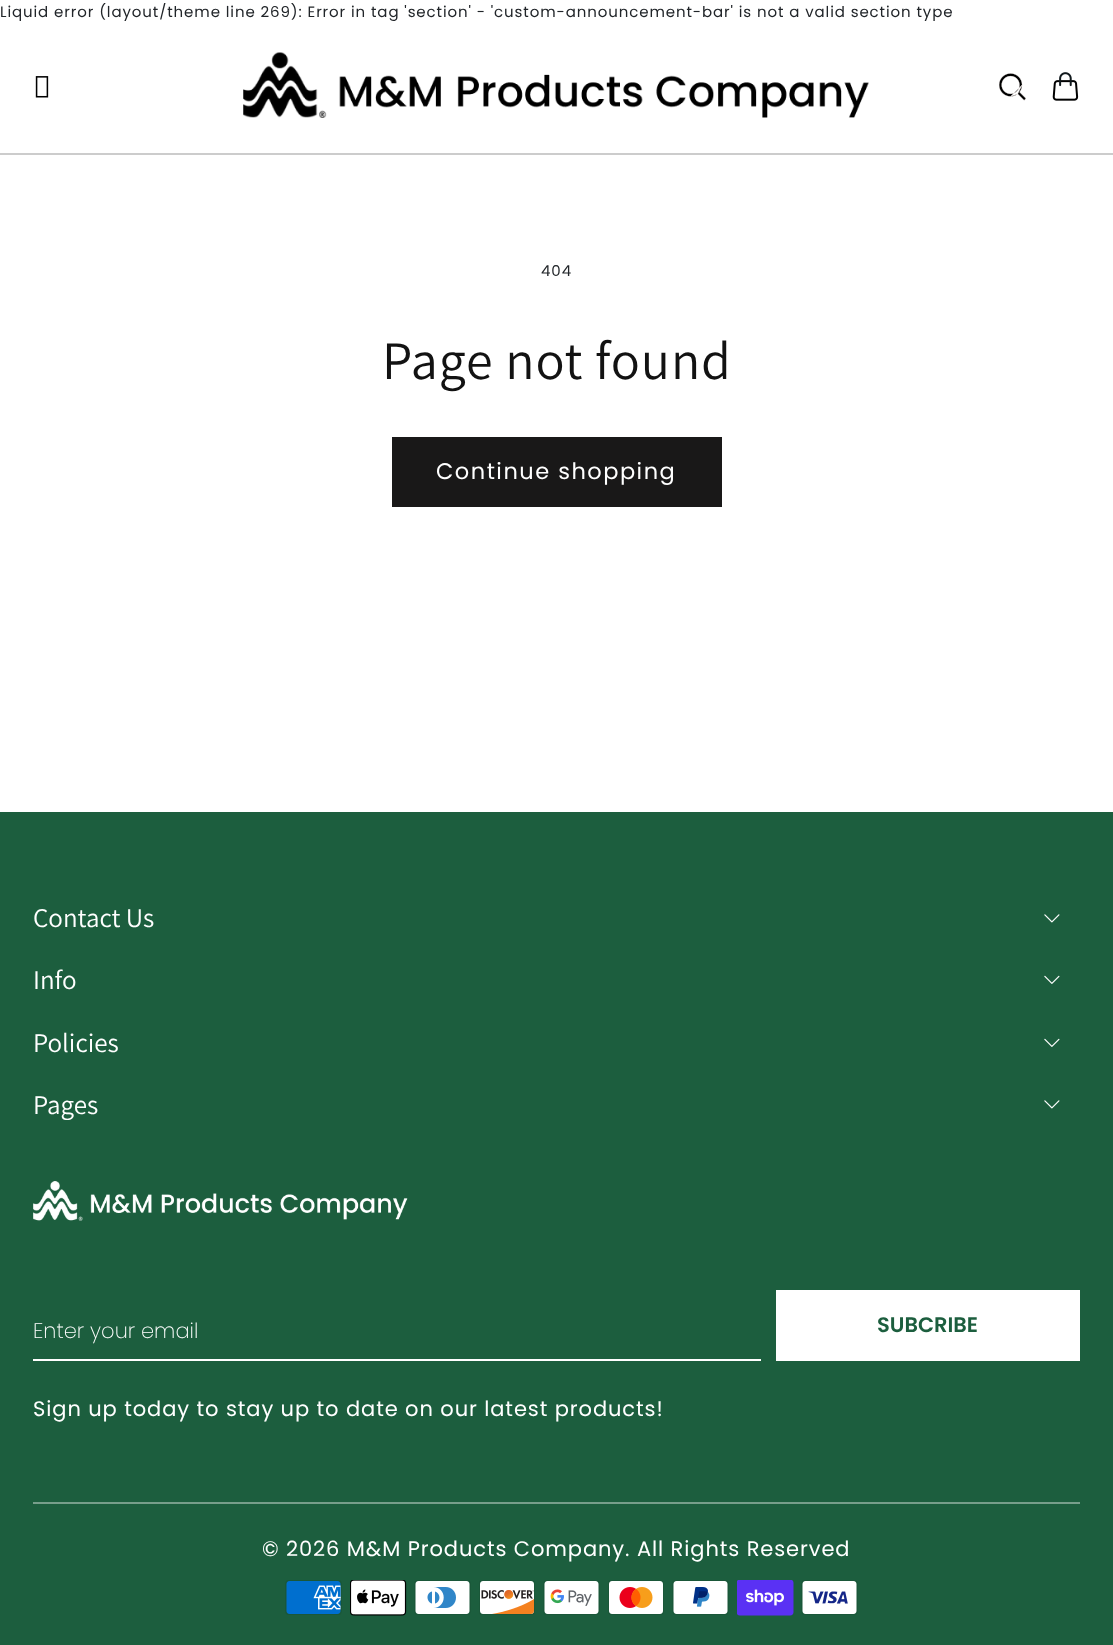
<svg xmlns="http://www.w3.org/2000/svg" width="1113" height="1645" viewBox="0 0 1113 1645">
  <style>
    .t1 { font: 15px Poppins; letter-spacing: 0.9px; fill: #212529; }
    .t2 { font: 54px Assistant; letter-spacing: 0.9px; fill: #121212; }
    .t3 { font: 22.5px Poppins; letter-spacing: 1.5px; fill: #fff; }
    .t4 { font: 27px Assistant; fill: #fff; }
    .t5 { font: 200 21px Poppins; fill: #fff; }
    .t6 { font: 600 21px Poppins; fill: #1c5e3e; }
    .t7 { font: 21px Poppins; letter-spacing: 0.9px; fill: #fff; }
  </style>
  <rect width="100%" height="100%" fill="#fff"/>
  <text x="0" y="17" class="t1">Liquid error (layout/theme line 269): Error in tag 'section' - 'custom-announcement-bar' is not a valid section type</text>
  <rect x="0" y="153" width="1113" height="2" fill="#ccc"/>
  <image x="35" y="76" width="14" height="22" href="images/1.png"/>
  <image x="243" y="52" width="626" height="66" href="images/2.png"/>
  <image x="999" y="73" width="27" height="28" href="images/3.png"/>
  <image x="1052" y="72" width="27" height="29" href="images/4.png"/>
  <text x="541" y="276" class="t1">404</text>
  <text x="382" y="379" class="t2">Page not found</text>
  <rect x="392" y="437" width="330" height="70" fill="#191818"/>
  <text x="436" y="479" class="t3">Continue shopping</text>
  <rect x="0" y="812" width="1113" height="833" fill="#1c5e3e"/>
  <text x="33" y="927" class="t4">Contact Us</text>
  <image x="1044" y="914" width="16" height="9" href="images/5.png"/>
  <text x="33" y="989" class="t4">Info</text>
  <image x="1044" y="975" width="16" height="9" href="images/6.png"/>
  <text x="33" y="1052" class="t4">Policies</text>
  <image x="1044" y="1038" width="16" height="9" href="images/6.png"/>
  <text x="33" y="1114" class="t4">Pages</text>
  <image x="1044" y="1100" width="16" height="9" href="images/5.png"/>
  <image x="33" y="1181" width="375" height="40" href="images/7.png"/>
  <rect x="33" y="1359" width="728" height="2" fill="#fff"/>
  <text x="33" y="1338" class="t5">Enter your email</text>
  <rect x="776" y="1290" width="304" height="71" fill="#fff"/>
  <text x="877" y="1332" class="t6">SUBCRIBE</text>
  <text x="33" y="1416" class="t7">Sign up today to stay up to date on our latest products!</text>
  <rect x="33" y="1502" width="1047" height="2" fill="#779e8b"/>
  <text x="262" y="1556" class="t7">© 2026 M&amp;M Products Company. All Rights Reserved</text>
  <image x="285" y="1580" width="57" height="35" href="images/8.png"/>
  <image x="350" y="1580" width="57" height="36" href="images/9.png"/>
  <image x="414" y="1580" width="57" height="35" href="images/10.png"/>
  <image x="479" y="1580" width="56" height="35" href="images/11.png"/>
  <image x="543" y="1580" width="57" height="35" href="images/12.png"/>
  <image x="608" y="1580" width="56" height="35" href="images/13.png"/>
  <image x="672" y="1580" width="57" height="35" href="images/14.png"/>
  <image x="737" y="1580" width="57" height="36" href="images/15.png"/>
  <image x="801" y="1580" width="57" height="35" href="images/16.png"/>
</svg>
